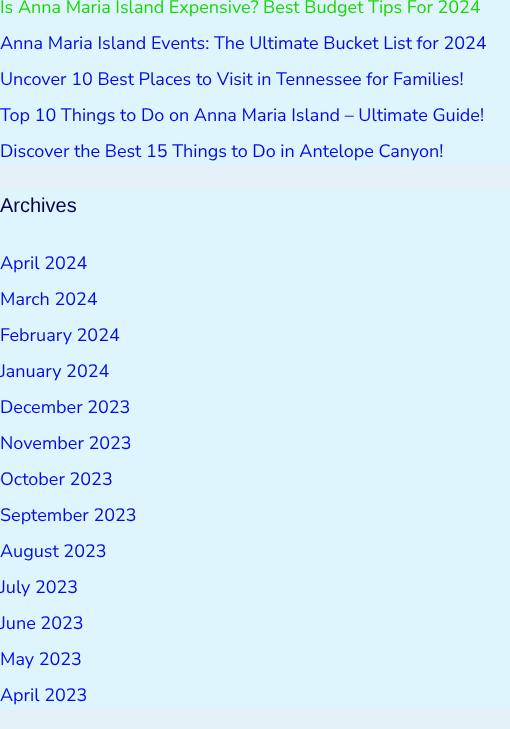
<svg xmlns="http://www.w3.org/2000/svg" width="510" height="729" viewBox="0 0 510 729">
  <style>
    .t1 { font: 18px Nunito Sans; fill: #1cd604; }
    .t2 { font: 18px Nunito Sans; fill: #010ce4; }
    .t3 { font: 20px Liberation Sans; fill: #08024e; }
  </style>
  <rect width="100%" height="100%" fill="#e5f1f8"/>
  <rect x="0" y="0" width="510" height="165" fill="#def5fd"/>
  <text x="0" y="13" class="t1">Is Anna Maria Island Expensive? Best Budget Tips For 2024</text>
  <text x="0" y="49" class="t2">Anna Maria Island Events: The Ultimate Bucket List for 2024</text>
  <text x="0" y="85" class="t2">Uncover 10 Best Places to Visit in Tennessee for Families!</text>
  <text x="0" y="121" class="t2">Top 10 Things to Do on Anna Maria Island – Ultimate Guide!</text>
  <text x="0" y="157" class="t2">Discover the Best 15 Things to Do in Antelope Canyon!</text>
  <rect x="0" y="190" width="510" height="519" fill="#def5fd"/>
  <text x="0" y="212" class="t3">Archives</text>
  <text x="0" y="269" class="t2">April 2024</text>
  <text x="0" y="305" class="t2">March 2024</text>
  <text x="0" y="341" class="t2">February 2024</text>
  <text x="0" y="377" class="t2">January 2024</text>
  <text x="0" y="413" class="t2">December 2023</text>
  <text x="0" y="449" class="t2">November 2023</text>
  <text x="0" y="485" class="t2">October 2023</text>
  <text x="0" y="521" class="t2">September 2023</text>
  <text x="0" y="557" class="t2">August 2023</text>
  <text x="0" y="593" class="t2">July 2023</text>
  <text x="0" y="629" class="t2">June 2023</text>
  <text x="0" y="665" class="t2">May 2023</text>
  <text x="0" y="701" class="t2">April 2023</text>
</svg>
